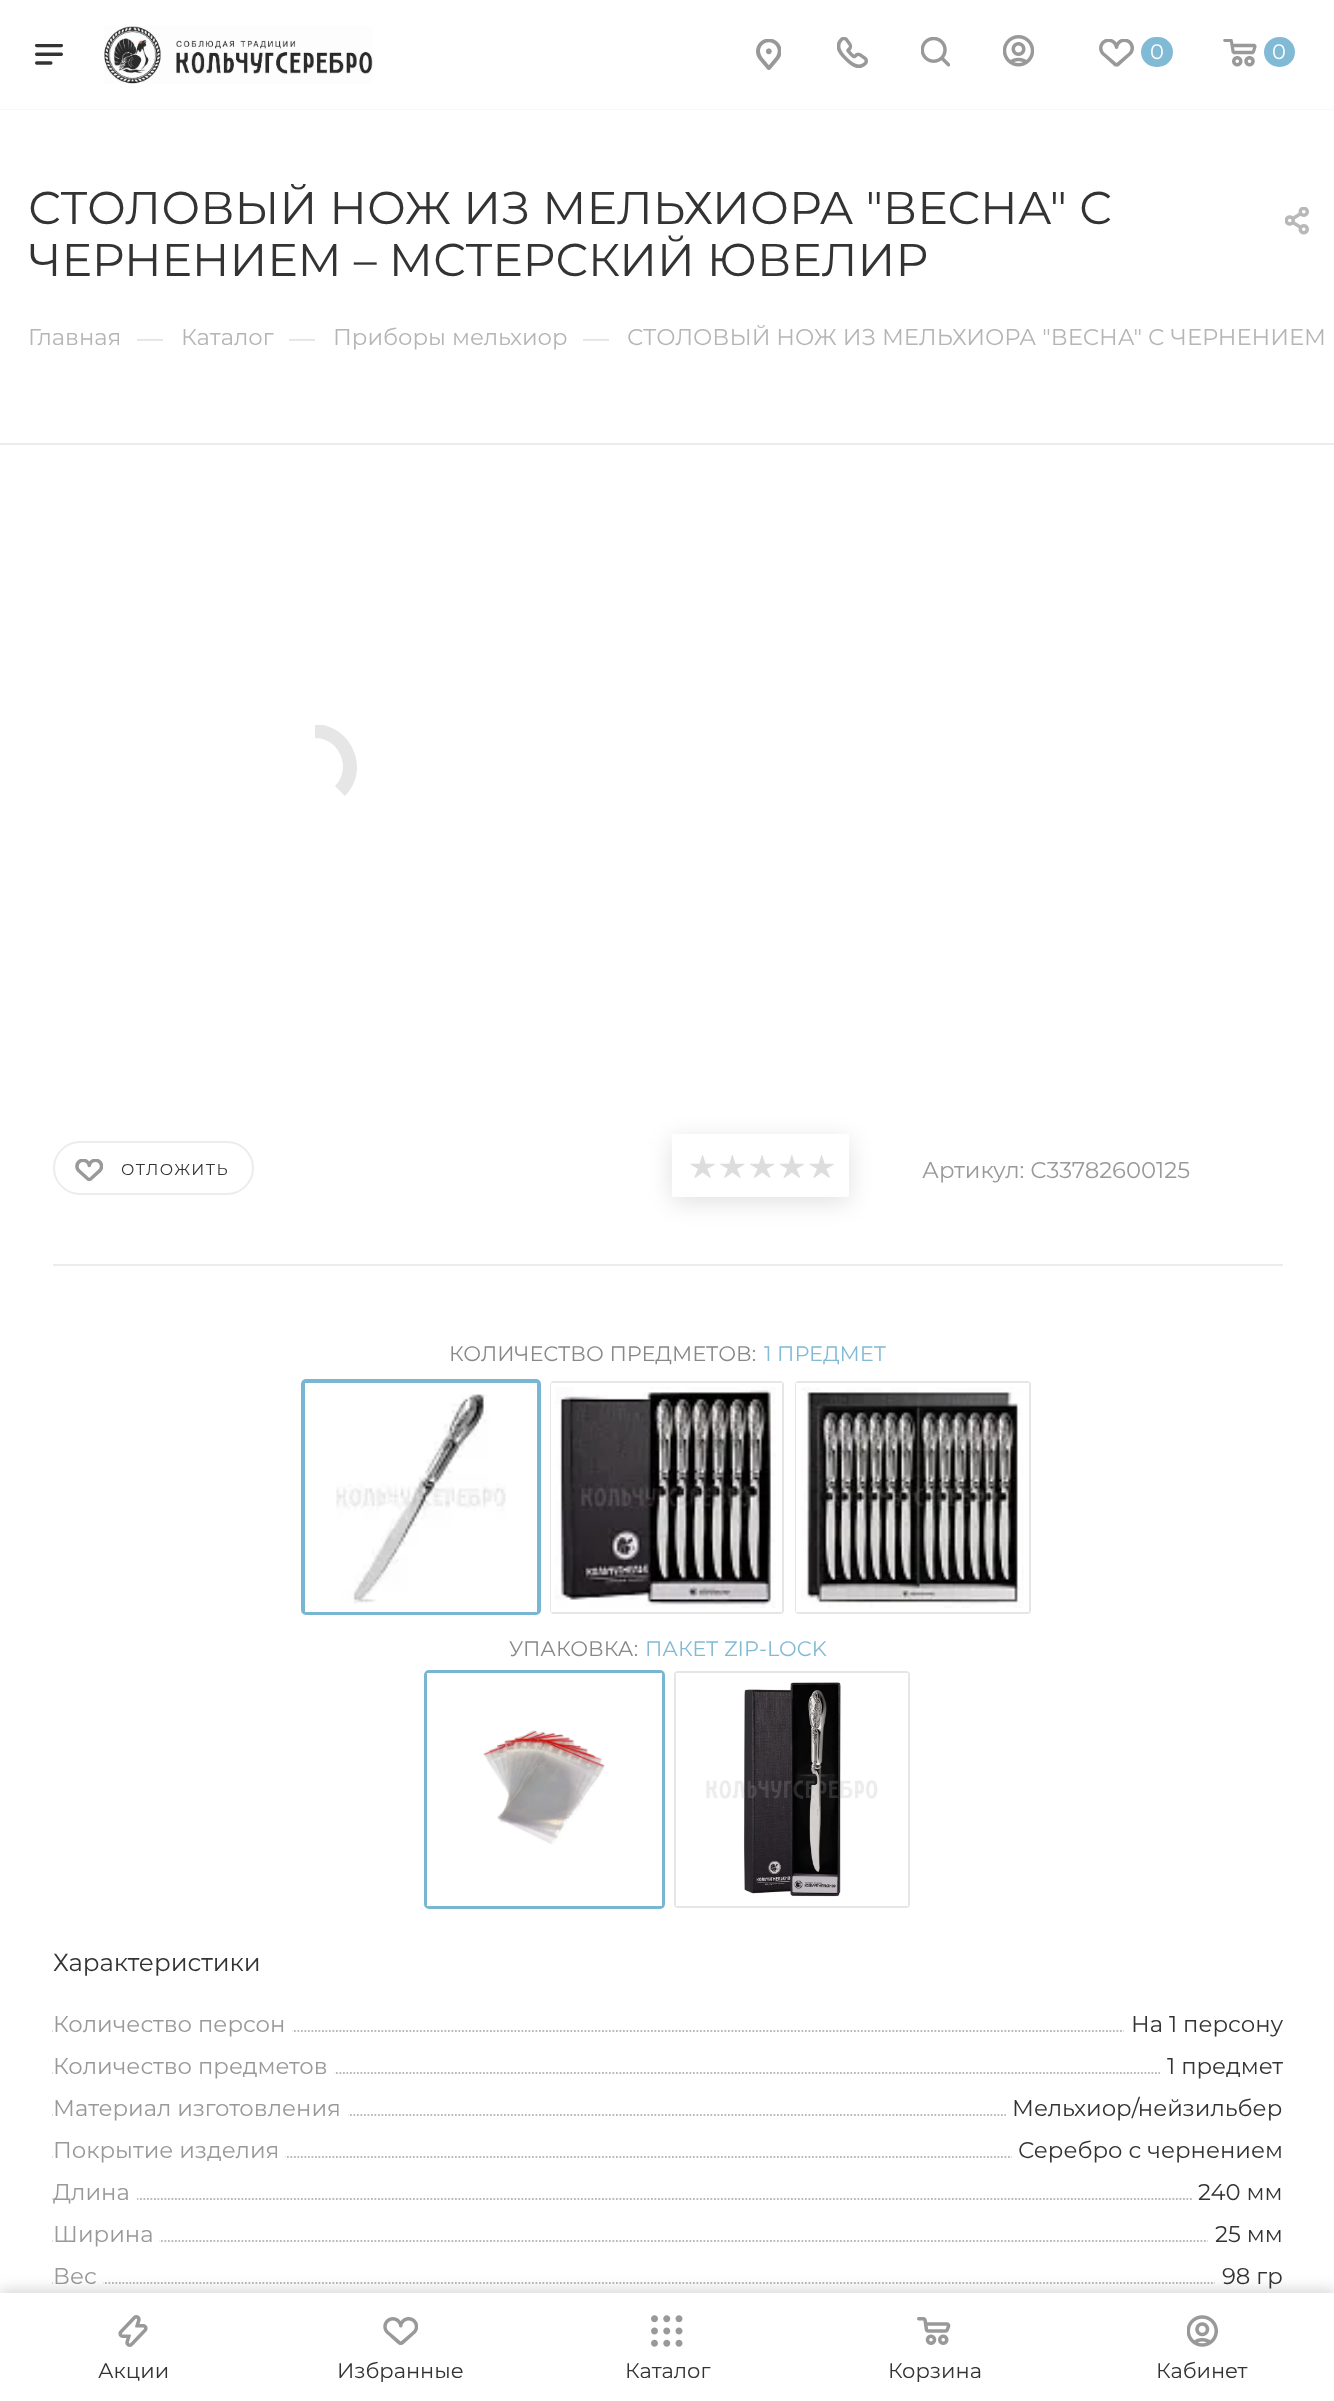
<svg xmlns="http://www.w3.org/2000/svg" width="1334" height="2401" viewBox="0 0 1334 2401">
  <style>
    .t1 { font: 21px Montserrat; fill: #fff; }
    .t2 { font: 45.9px Montserrat; fill: #333; }
    .t3 { font: 22.75px Montserrat; fill: #b6b5b5; }
    .t4 { font: 26px Montserrat; fill: #ddd; }
    .t5 { font: 15.75px Montserrat; letter-spacing: 1.5px; fill: #333; }
    .t6 { font: 22.75px Montserrat; fill: #999; }
    .t7 { font: 21px Montserrat; fill: #888; }
    .t8 { font: 21px Montserrat; fill: #81bad5; }
    .t9 { font: 24.5px Montserrat; fill: #333; }
    .t10 { font: 22.75px Montserrat; fill: #333; }
    .t11 { font: 21px Montserrat; fill: #333; }
  </style>
  <defs>
    <clipPath id="clip1"><rect x="28" y="184" width="1199" height="103"/></clipPath>
    <clipPath id="clip2"><rect x="273" y="725" width="84" height="84"/></clipPath>
    <clipPath id="clip3"><path d="M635 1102H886V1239H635ZM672 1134H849V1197H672Z" clip-rule="evenodd"/></clipPath>
  </defs>
  <rect width="100%" height="100%" fill="#fff"/>
  <rect x="0" y="109" width="1334" height="1" fill="#f8f8f8"/>
  <image x="35" y="44" width="28" height="21" href="images/1.png"/>
  <image x="104" y="26" width="269" height="58" href="images/2.png"/>
  <image x="756" y="39" width="25" height="31" href="images/3.png"/>
  <image x="837" y="37" width="31" height="31" href="images/4.png"/>
  <image x="921" y="37" width="29" height="30" href="images/5.png"/>
  <image x="1003" y="35" width="31" height="32" href="images/6.png"/>
  <image x="1099" y="39" width="35" height="28" href="images/7.png"/>
  <rect x="1141" y="37" width="32" height="30" rx="15" fill="#81bad5"/>
  <text x="1150" y="59" class="t1">0</text>
  <image x="1223" y="39" width="34" height="28" href="images/8.png"/>
  <rect x="1264" y="37" width="31" height="30" rx="15" fill="#81bad5"/>
  <text x="1272" y="59" class="t1">0</text>
  <g clip-path="url(#clip1)">
    <text x="28" y="224" class="t2">СТОЛОВЫЙ НОЖ ИЗ МЕЛЬХИОРА "ВЕСНА" С</text>
  </g>
  <text x="28" y="276" class="t2">ЧЕРНЕНИЕМ – МСТЕРСКИЙ ЮВЕЛИР</text>
  <image x="1285" y="207" width="24" height="28" href="images/9.png"/>
  <text x="28" y="345" class="t3">Главная</text>
  <text x="137" y="347" class="t4">—</text>
  <text x="181" y="345" class="t3">Каталог</text>
  <text x="289" y="347" class="t4">—</text>
  <text x="333" y="345" class="t3">Приборы мельхиор</text>
  <text x="583" y="347" class="t4">—</text>
  <text x="627" y="345" class="t3">СТОЛОВЫЙ НОЖ ИЗ МЕЛЬХИОРА "ВЕСНА" С ЧЕРНЕНИЕМ</text>
  <rect x="0" y="443" width="1334" height="2" fill="#ececec"/>
  <g clip-path="url(#clip2)">
    <path d="M315 724C352 725 371 770 345 796L335 786C352 769 340 738 315 738Z" fill="#e6e6e6"/>
  </g>
  <rect x="53" y="1264" width="1230" height="2" fill="#ececec"/>
  <rect x="54" y="1142" width="199" height="52" rx="26" fill="none" stroke="#ececec" stroke-width="2"/>
  <image x="75" y="1159" width="28" height="22" href="images/10.png"/>
  <text x="121" y="1175" class="t5">ОТЛОЖИТЬ</text>
  <g clip-path="url(#clip3)">
    <rect x="672" y="1139" width="177" height="63" fill="#0000001f" filter="blur(12px)"/>
  </g>
  <image x="690" y="1155" width="25" height="23" href="images/11.png"/>
  <image x="720" y="1155" width="25" height="23" href="images/12.png"/>
  <image x="750" y="1155" width="24" height="23" href="images/13.png"/>
  <image x="780" y="1155" width="24" height="23" href="images/14.png"/>
  <image x="809" y="1155" width="25" height="23" href="images/11.png"/>
  <text x="922" y="1178" class="t6">Артикул: С33782600125</text>
  <text x="449" y="1361" class="t7">КОЛИЧЕСТВО ПРЕДМЕТОВ:</text>
  <text x="764" y="1361" class="t8">1 ПРЕДМЕТ</text>
  <rect x="303" y="1381" width="236" height="232" rx="3" fill="none" stroke="#78b6d3" stroke-width="4"/>
  <image x="336" y="1394" width="170" height="210" href="images/15.png"/>
  <rect x="307" y="1385" width="228" height="225" fill="none" stroke="#fff" stroke-width="4"/>
  <rect x="551" y="1382" width="232" height="231" rx="3" fill="none" stroke="#e6e6e6" stroke-width="2"/>
  <image x="555" y="1387" width="221" height="221" href="images/16.png"/>
  <rect x="553" y="1385" width="227" height="225" fill="none" stroke="#fff" stroke-width="4"/>
  <rect x="796" y="1382" width="234" height="231" rx="3" fill="none" stroke="#e6e6e6" stroke-width="2"/>
  <image x="801" y="1387" width="223" height="221" href="images/17.png"/>
  <rect x="798" y="1385" width="229" height="225" fill="none" stroke="#fff" stroke-width="4"/>
  <text x="509" y="1656" class="t7">УПАКОВКА:</text>
  <text x="645" y="1656" class="t8">ПАКЕТ ZIP-LOCK</text>
  <rect x="426" y="1672" width="237" height="235" rx="3" fill="none" stroke="#78b6d3" stroke-width="4"/>
  <image x="483" y="1730" width="122" height="115" href="images/18.png"/>
  <rect x="429" y="1675" width="231" height="229" fill="none" stroke="#fff" stroke-width="4"/>
  <rect x="675" y="1672" width="234" height="235" rx="3" fill="none" stroke="#e6e6e6" stroke-width="2"/>
  <image x="706" y="1682" width="172" height="215" href="images/19.png"/>
  <rect x="678" y="1675" width="228" height="229" fill="none" stroke="#fff" stroke-width="4"/>
  <text x="53" y="1971" class="t9">Характеристики</text>
  <path d="M52.5 2031H1283" fill="none" stroke="#bababa" stroke-width="1.8" stroke-dasharray="1.75 1.75"/>
  <rect x="53" y="2030" width="239" height="2" fill="#fff"/>
  <text x="53" y="2032" class="t6">Количество персон</text>
  <rect x="1124" y="2030" width="159" height="2" fill="#fff"/>
  <text x="1131" y="2032" class="t10">На 1 персону</text>
  <path d="M52.5 2073H1283" fill="none" stroke="#bababa" stroke-width="1.8" stroke-dasharray="1.75 1.75"/>
  <rect x="53" y="2072" width="281" height="2" fill="#fff"/>
  <text x="53" y="2074" class="t6">Количество предметов</text>
  <rect x="1160" y="2072" width="123" height="2" fill="#fff"/>
  <text x="1167" y="2074" class="t10">1 предмет</text>
  <path d="M52.5 2115H1283" fill="none" stroke="#bababa" stroke-width="1.8" stroke-dasharray="1.75 1.75"/>
  <rect x="53" y="2114" width="295" height="2" fill="#fff"/>
  <text x="53" y="2116" class="t6">Материал изготовления</text>
  <rect x="1006" y="2114" width="277" height="2" fill="#fff"/>
  <text x="1012" y="2116" class="t10">Мельхиор/нейзильбер</text>
  <path d="M52.5 2157H1283" fill="none" stroke="#bababa" stroke-width="1.8" stroke-dasharray="1.75 1.75"/>
  <rect x="53" y="2156" width="232" height="2" fill="#fff"/>
  <text x="53" y="2158" class="t6">Покрытие изделия</text>
  <rect x="1012" y="2156" width="271" height="2" fill="#fff"/>
  <text x="1018" y="2158" class="t10">Серебро с чернением</text>
  <path d="M52.5 2199H1283" fill="none" stroke="#bababa" stroke-width="1.8" stroke-dasharray="1.75 1.75"/>
  <rect x="53" y="2198" width="84" height="2" fill="#fff"/>
  <text x="53" y="2200" class="t6">Длина</text>
  <rect x="1193" y="2198" width="90" height="2" fill="#fff"/>
  <text x="1198" y="2200" class="t10">240 мм</text>
  <path d="M52.5 2241H1283" fill="none" stroke="#bababa" stroke-width="1.8" stroke-dasharray="1.75 1.75"/>
  <rect x="53" y="2240" width="106" height="2" fill="#fff"/>
  <text x="53" y="2242" class="t6">Ширина</text>
  <rect x="1208" y="2240" width="75" height="2" fill="#fff"/>
  <text x="1215" y="2242" class="t10">25 мм</text>
  <path d="M52.5 2283H1283" fill="none" stroke="#bababa" stroke-width="1.8" stroke-dasharray="1.75 1.75"/>
  <rect x="53" y="2282" width="50" height="2" fill="#fff"/>
  <text x="53" y="2284" class="t6">Вес</text>
  <rect x="1215" y="2282" width="68" height="2" fill="#fff"/>
  <text x="1222" y="2284" class="t10">98 гр</text>
  <rect x="0" y="2289" width="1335" height="109" fill="#00000026" filter="blur(7px)"/>
  <rect x="0" y="2293" width="1334" height="108" fill="#fff"/>
  <image x="118" y="2315" width="30" height="32" href="images/20.png"/>
  <text x="98" y="2378" class="t11">Акции</text>
  <image x="383" y="2317" width="35" height="28" href="images/21.png"/>
  <text x="337" y="2378" class="t11">Избранные</text>
  <image x="651" y="2315" width="32" height="32" href="images/22.png"/>
  <text x="625" y="2378" class="t11">Каталог</text>
  <image x="917" y="2317" width="34" height="28" href="images/23.png"/>
  <text x="888" y="2378" class="t11">Корзина</text>
  <image x="1187" y="2315" width="31" height="32" href="images/24.png"/>
  <text x="1156" y="2378" class="t11">Кабинет</text>
</svg>
